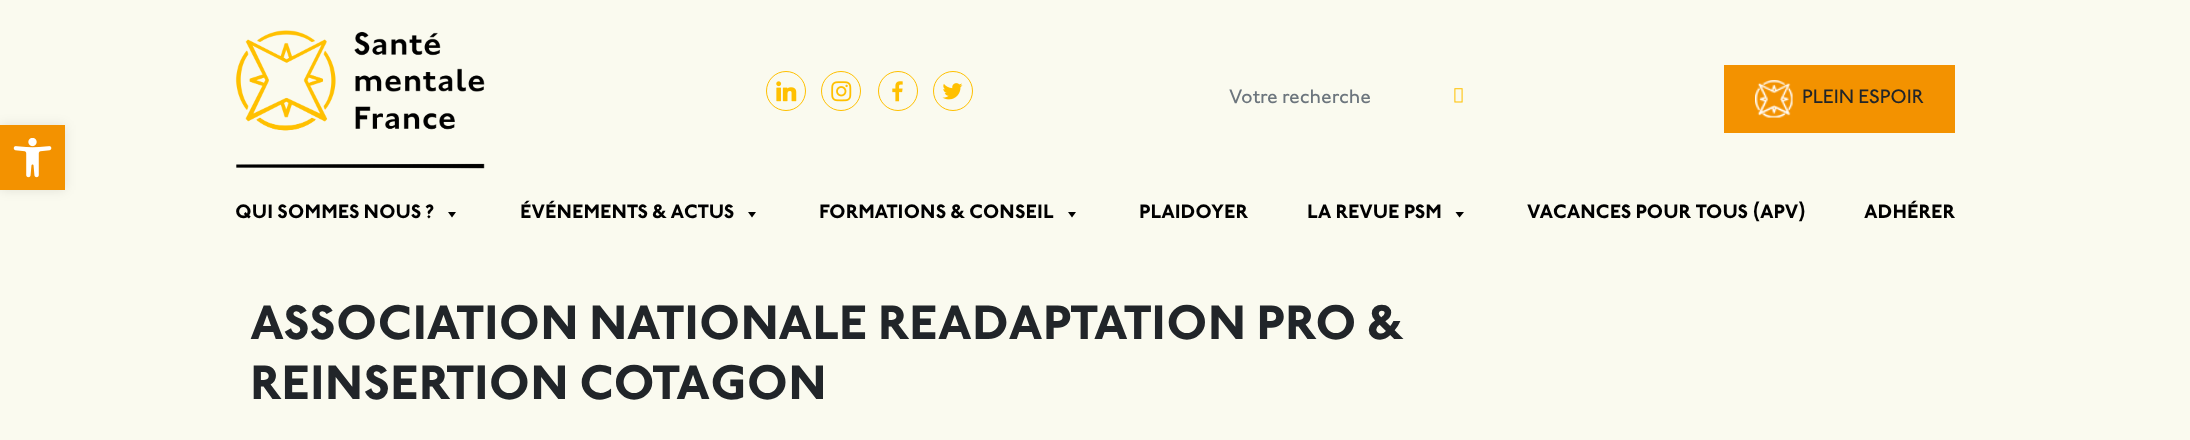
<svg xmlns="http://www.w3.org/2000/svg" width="2190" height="440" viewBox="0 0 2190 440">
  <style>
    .t1 { font: 500 20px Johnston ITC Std; fill: #6c757d; }
    .t2 { font: 500 20px Johnston ITC Std; fill: #212529; }
    .t3 { font: bold 20px Johnston ITC Std; fill: #000; }
    .t4 { font: bold 50px Johnston ITC Std; fill: #212529; }
  </style>
  <rect width="100%" height="100%" fill="#fafaef"/>
  <rect x="0" y="125" width="65" height="65" fill="#0000001a" filter="blur(6px)"/>
  <rect x="0" y="125" width="65" height="65" fill="#f39200"/>
  <image x="13" y="138" width="39" height="40" href="images/1.png"/>
  <image x="235" y="30" width="250" height="139" href="images/2.png"/>
  <circle cx="786" cy="91" r="19.5" fill="none" stroke="#ffc000"/>
  <image x="776" y="81" width="21" height="21" href="images/3.png"/>
  <circle cx="841" cy="91" r="19.5" fill="none" stroke="#ffc000"/>
  <image x="831" y="81" width="21" height="21" href="images/4.png"/>
  <circle cx="898" cy="91" r="19.5" fill="none" stroke="#ffc000"/>
  <image x="892" y="81" width="11" height="21" href="images/5.png"/>
  <circle cx="953" cy="91" r="19.5" fill="none" stroke="#ffc000"/>
  <image x="942" y="83" width="21" height="17" href="images/6.png"/>
  <text x="1229" y="103" class="t1">Votre recherche</text>
  <image x="1454" y="88" width="9" height="15" href="images/7.png"/>
  <rect x="1724" y="65" width="231" height="68" fill="#f39200"/>
  <image x="1755" y="80" width="38" height="38" href="images/8.png"/>
  <text x="1802" y="103" class="t2">PLEIN ESPOIR</text>
  <text x="235" y="218" class="t3">QUI SOMMES NOUS ?</text>
  <path d="M456 212L452 217.5L448 212Z" fill="#000"/>
  <text x="520" y="218" class="t3">ÉVÉNEMENTS &amp; ACTUS</text>
  <path d="M756 212L752 217.5L748 212Z" fill="#000"/>
  <text x="819" y="218" class="t3">FORMATIONS &amp; CONSEIL</text>
  <path d="M1076 212L1072 217.5L1068 212Z" fill="#000"/>
  <text x="1139" y="218" class="t3">PLAIDOYER</text>
  <text x="1307" y="218" class="t3">LA REVUE PSM</text>
  <path d="M1464 212L1459.5 217.5L1455.5 212Z" fill="#000"/>
  <text x="1527" y="218" class="t3">VACANCES POUR TOUS (APV)</text>
  <text x="1864" y="218" class="t3">ADHÉRER</text>
  <text x="250" y="339" class="t4">ASSOCIATION NATIONALE READAPTATION PRO &amp;</text>
  <text x="250" y="399" class="t4">REINSERTION COTAGON</text>
</svg>
